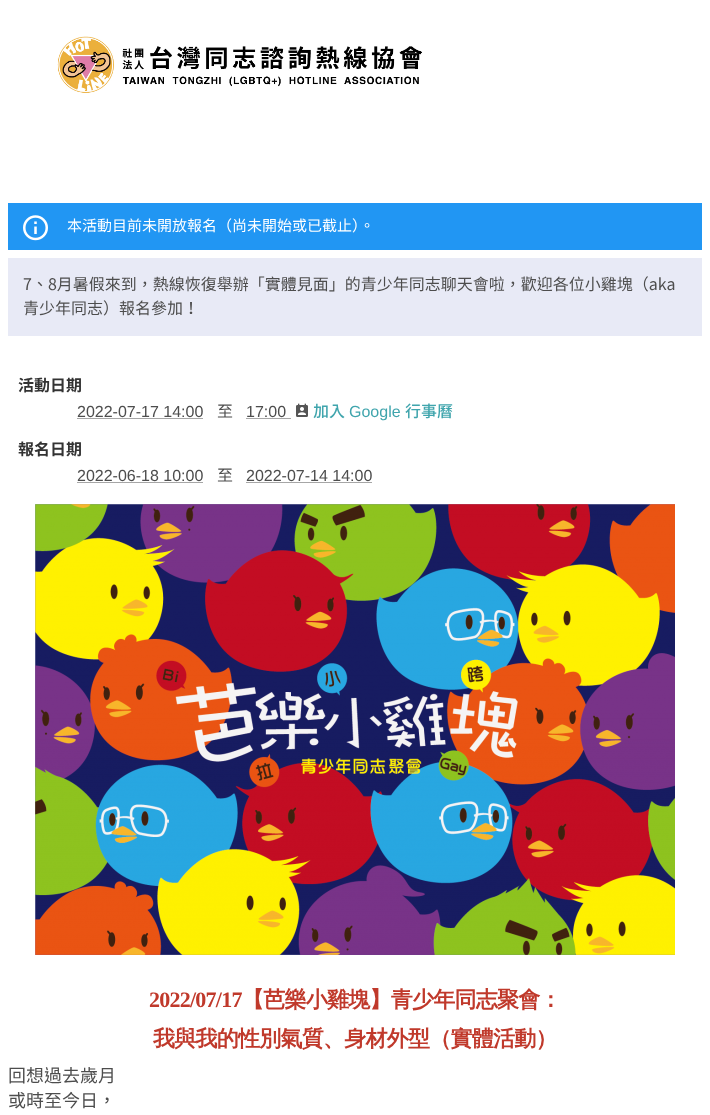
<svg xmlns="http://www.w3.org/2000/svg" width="710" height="1115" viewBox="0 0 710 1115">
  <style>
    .t1 { font: 15px Noto Sans TC; fill: #fff; }
    .t2 { font: 16px Noto Sans TC; fill: #4d4d4d; }
    .t3 { font: bold 16px Noto Sans TC; fill: #333; }
    .t4 { font: 16px Liberation Sans; fill: #4d4d4d; }
    .t5 { font: 500 16px Noto Sans TC; fill: #40a5ad; }
    .t6 { font: 16px Liberation Sans; fill: #40a5ad; }
    .t7 { font: bold 22px Liberation Serif; letter-spacing: -0.75px; fill: #c0392b; }
    .t8 { font: bold 22px WenQuanYi Zen Hei; letter-spacing: -0.75px; fill: #c0392b; }
    .t9 { font: 18px Noto Sans TC; fill: #4d4d4d; }
  </style>
  <rect width="100%" height="100%" fill="#fff"/>
  <image x="57" y="36" width="365" height="57" href="images/1.png"/>
  <rect x="8" y="203" width="694" height="47" fill="#2196f3"/>
  <image x="23" y="215" width="25" height="26" href="images/2.png"/>
  <text x="67" y="231" class="t1">本活動目前未開放報名（尚未開始或已截止）。</text>
  <rect x="8" y="258" width="694" height="78" fill="#e8eaf6"/>
  <text x="23" y="290" class="t2">7、8月暑假來到，熱線恢復舉辦「實體見面」的青少年同志聊天會啦，歡迎各位小雞塊（aka</text>
  <text x="23" y="314" class="t2">青少年同志）報名參加！</text>
  <text x="18" y="391" class="t3">活動日期</text>
  <text x="77" y="417" class="t4">2022-07-17 14:00</text>
  <path d="M77.5 418.5H203.5" fill="none" stroke="#4d4d4d" stroke-dasharray="1 1"/>
  <text x="217" y="417" class="t2">至</text>
  <text x="246" y="417" class="t4">17:00</text>
  <path d="M246.5 418.5H291" fill="none" stroke="#4d4d4d" stroke-dasharray="1 1"/>
  <image x="296" y="403" width="12" height="14" href="images/3.png"/>
  <text x="313" y="417" class="t5">加入</text>
  <text x="349" y="417" class="t6">Google</text>
  <text x="405" y="417" class="t5">行事曆</text>
  <text x="18" y="455" class="t3">報名日期</text>
  <text x="77" y="481" class="t4">2022-06-18 10:00</text>
  <path d="M77.5 482.5H203.5" fill="none" stroke="#4d4d4d" stroke-dasharray="1 1"/>
  <text x="217" y="481" class="t2">至</text>
  <text x="246" y="481" class="t4">2022-07-14 14:00</text>
  <path d="M246.5 482.5H372.5" fill="none" stroke="#4d4d4d" stroke-dasharray="1 1"/>
  <image x="35" y="504" width="640" height="451" href="images/4.png"/>
  <text x="149" y="1007" class="t7">2022/07/17</text>
  <text x="242" y="1007" class="t8">【芭樂小雞塊】青少年同志聚會：</text>
  <text x="153" y="1046" class="t8">我與我的性別氣質、身材外型（實體活動）</text>
  <text x="8" y="1082" class="t9">回想過去歲月</text>
  <text x="8" y="1107" class="t9">或時至今日，</text>
</svg>
